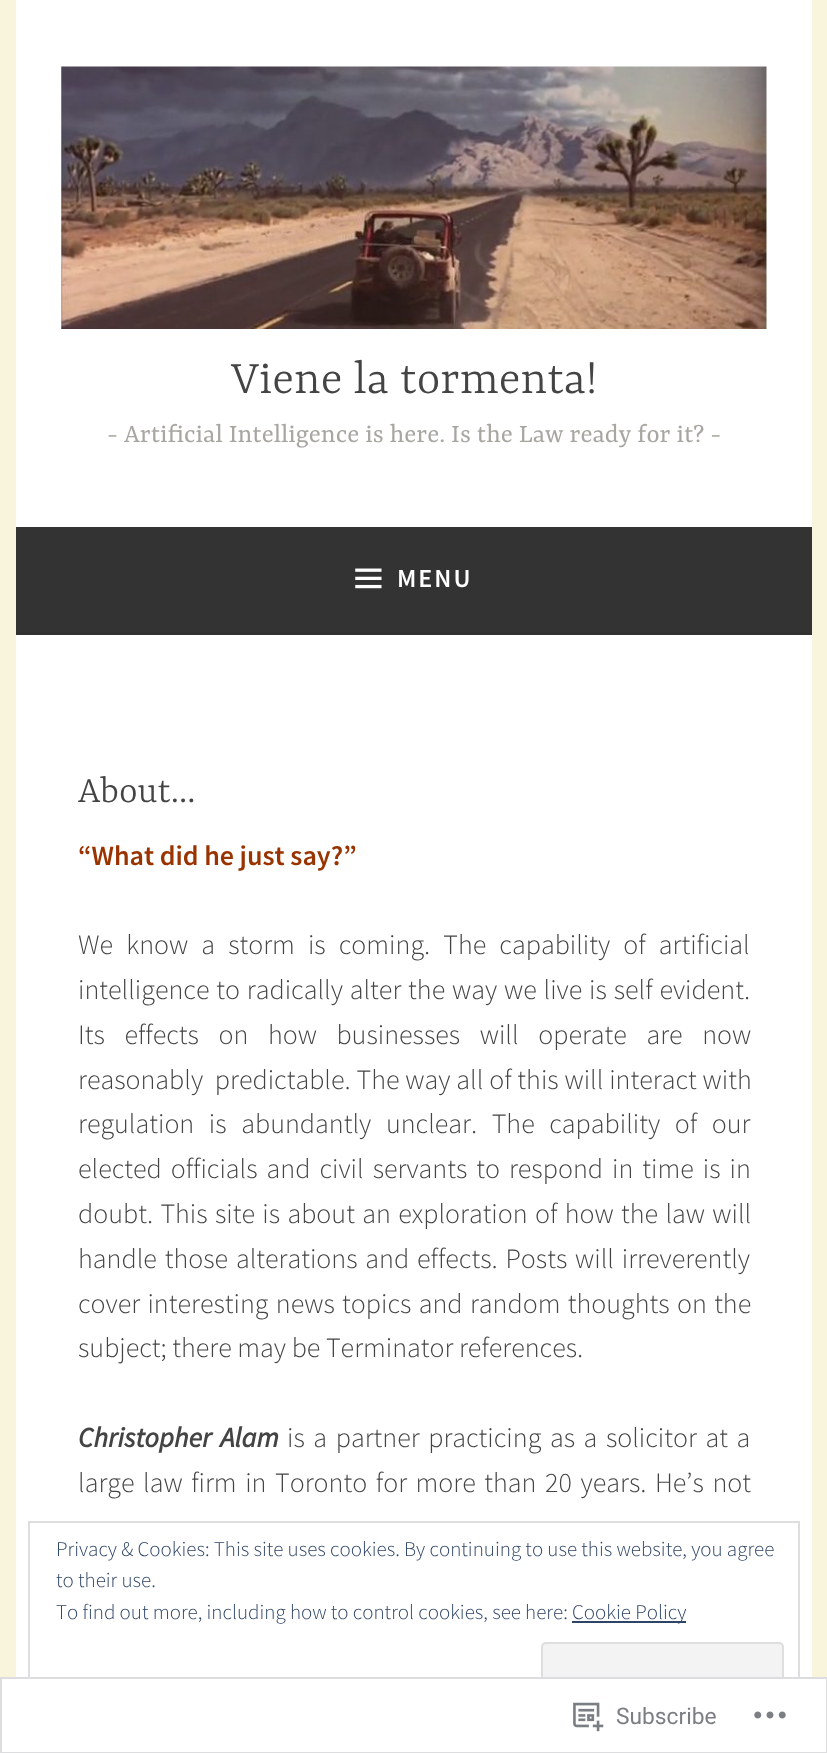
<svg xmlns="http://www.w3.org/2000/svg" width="827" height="1753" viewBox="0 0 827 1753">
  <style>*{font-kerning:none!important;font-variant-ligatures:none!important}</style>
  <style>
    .t1 { font: 300 50.75px Yrsa; fill: #444; }
    .t2 { font: 28px Yrsa; fill: #a8a6a1; }
    .t3 { font: 600 26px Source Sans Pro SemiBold; letter-spacing: 2px; fill: #fff; }
    .t4 { font: 300 40px Yrsa; fill: #444; }
    .t5 { font: 600 28px Source Sans Pro SemiBold; fill: #930; }
    .t6 { font: 300 28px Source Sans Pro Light; fill: #444; }
    .t7 { font: italic bold 28px Source Sans Pro; fill: #444; }
    .t8 { font: 300 21px Source Sans Pro Light; fill: #2e4467; }
    .t9 { font: 22.75px Roboto; fill: #7b7f84; }
  </style>
  <rect width="100%" height="100%" fill="#f9f5dc"/>
  <rect x="16" y="0" width="796" height="527" fill="#fff"/>
  <image x="61" y="66" width="706" height="263" href="images/1.png"/>
  <text x="231" y="393" class="t1">Viene la tormenta!</text>
  <text x="107" y="442" class="t2">- Artificial Intelligence is here. Is the Law ready for it? -</text>
  <rect x="16" y="527" width="796" height="105" fill="#333"/>
  <rect x="16" y="632" width="796" height="3" fill="#313131"/>
  <image x="355" y="568" width="27" height="21" href="images/2.png"/>
  <text x="397" y="587" class="t3">MENU</text>
  <rect x="16" y="635" width="796" height="1118" fill="#fff"/>
  <text x="78" y="802" class="t4">About…</text>
  <text x="78" y="865" class="t5">“What did he just say?”</text>
  <text x="78" y="954" word-spacing="7.5" class="t6">We know a storm is coming. The capability of artificial</text>
  <text x="78" y="999" word-spacing="1.25" class="t6">intelligence to radically alter the way we live is self evident.</text>
  <text x="78" y="1044" word-spacing="14" class="t6">Its effects on how businesses will operate are now</text>
  <text x="78" y="1089" word-spacing="0.25" class="t6" xml:space="preserve">reasonably  predictable. The way all of this will interact with</text>
  <text x="78" y="1133" word-spacing="9" class="t6">regulation is abundantly unclear. The capability of our</text>
  <text x="78" y="1178" word-spacing="3.4" class="t6">elected officials and civil servants to respond in time is in</text>
  <text x="78" y="1223" word-spacing="1.75" class="t6">doubt. This site is about an exploration of how the law will</text>
  <text x="78" y="1268" word-spacing="2.25" class="t6">handle those alterations and effects. Posts will irreverently</text>
  <text x="78" y="1313" word-spacing="1.75" class="t6">cover interesting news topics and random thoughts on the</text>
  <text x="78" y="1357" class="t6">subject; there may be Terminator references.</text>
  <text x="78" y="1447" word-spacing="3" class="t7">Christopher Alam</text>
  <text x="287" y="1447" word-spacing="3" class="t6">is a partner practicing as a solicitor at a</text>
  <text x="78" y="1492" word-spacing="3" class="t6">large law firm in Toronto for more than 20 years. He’s not</text>
  <rect x="29" y="1522" width="770" height="203" fill="none" stroke="#dedede" stroke-width="2"/>
  <text x="56" y="1556" class="t8">Privacy &amp; Cookies: This site uses cookies. By continuing to use this website, you agree</text>
  <text x="56" y="1587" class="t8">to their use.</text>
  <text x="56" y="1619" class="t8">To find out more, including how to control cookies, see here:</text>
  <rect x="572" y="1621" width="114" height="2" fill="#2e4467"/>
  <text x="572" y="1619" class="t8">Cookie Policy</text>
  <rect x="541" y="1642" width="243" height="68" rx="5" fill="#f3f3f3"/>
  <path d="M543 1703L544 1707L547 1708H778C782 1708 782 1704 782 1701C782 1703 781 1704 779 1704H546C545 1704 544 1704 543 1703Z" fill="#dbdbdb"/>
  <rect x="542" y="1643" width="241" height="66" rx="4" fill="none" stroke="#dedede" stroke-width="2"/>
  <rect x="0" y="1677" width="827" height="76" fill="#fffffffa"/>
  <rect x="1" y="1678" width="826" height="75" fill="none" stroke="#dcdcdefa" stroke-width="2"/>
  <image x="573" y="1702" width="31" height="30" href="images/3.png"/>
  <text x="616" y="1724" class="t9">Subscribe</text>
  <image x="754" y="1711" width="32" height="8" href="images/4.png"/>
</svg>
